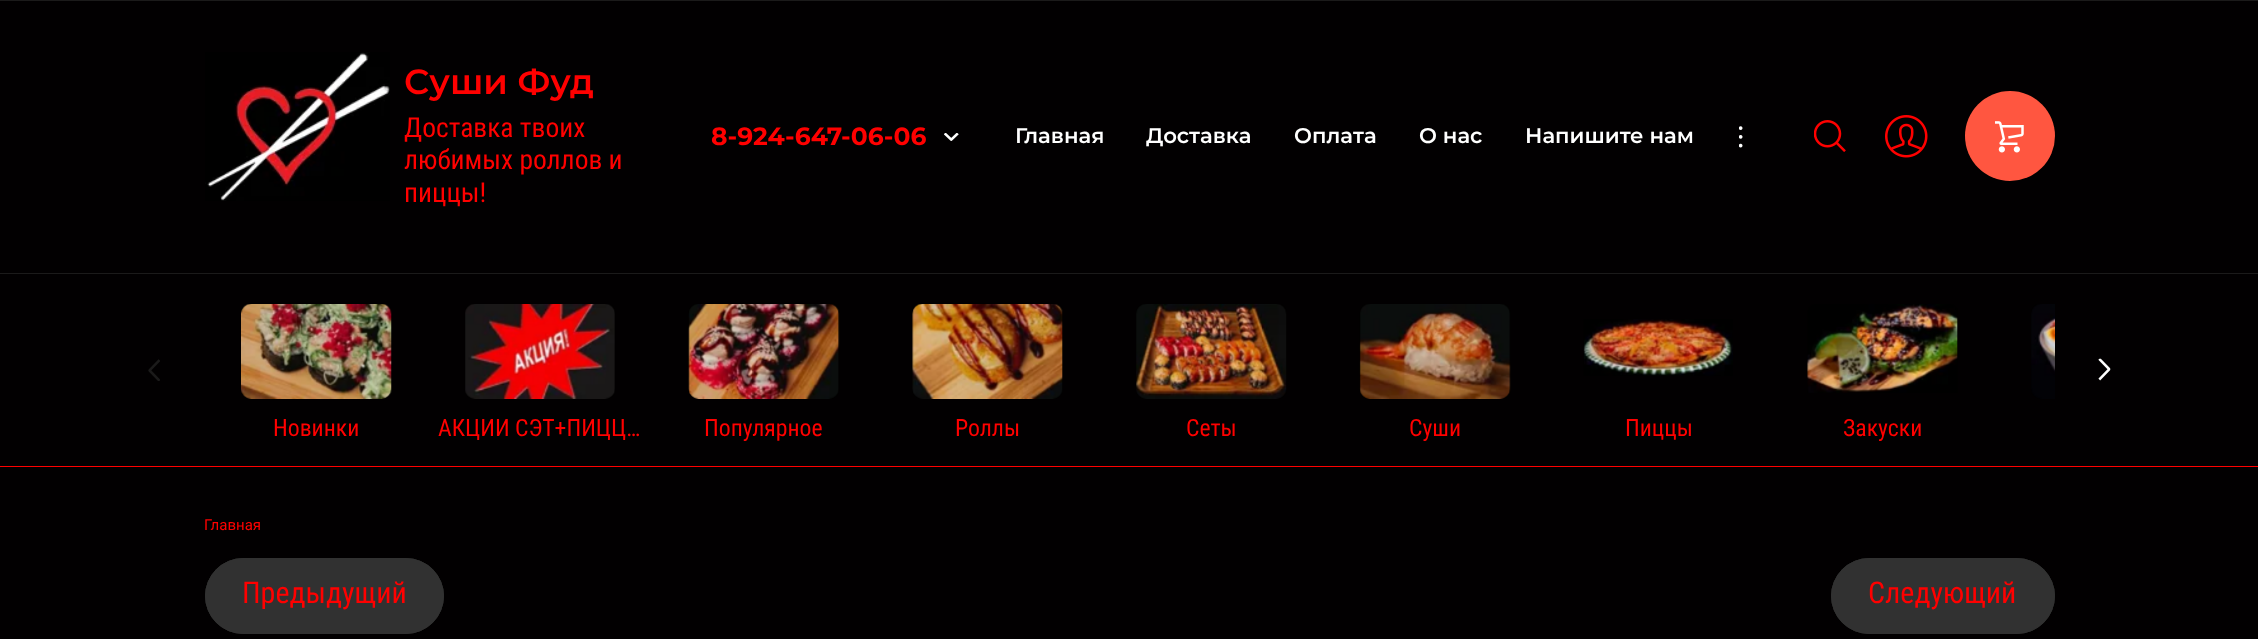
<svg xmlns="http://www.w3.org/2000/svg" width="2258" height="639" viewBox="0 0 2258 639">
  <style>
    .t1 { font: 600 35px Montserrat; fill: #f00; }
    .t2 { font: 27.5px Roboto Condensed; fill: #f00; }
    .t3 { font: bold 25px Montserrat; fill: #f00; }
    .t4 { font: 600 21.25px Montserrat; fill: #fff; }
    .t5 { font: 23.75px Roboto Condensed; fill: #f00; }
    .t6 { font: 15px Roboto; fill: #f00; }
    .t7 { font: 30px Roboto Condensed; fill: #f00; }
  </style>
  <rect width="100%" height="100%" fill="#020001"/>
  <path d="M0 0V1H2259V-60V0Z" fill="#1b1a1a"/>
  <rect x="0" y="273" width="2258" height="1" fill="#1b1a1a"/>
  <image x="205" y="52" width="185" height="149" href="images/1.png"/>
  <text x="404" y="94" class="t1">Суши Фуд</text>
  <text x="404" y="137" class="t2">Доставка твоих</text>
  <text x="404" y="169" class="t2">любимых роллов и</text>
  <text x="404" y="202" class="t2">пиццы!</text>
  <text x="711" y="145" class="t3">8-924-647-06-06</text>
  <image x="944" y="133" width="15" height="8" href="images/2.png"/>
  <text x="1015" y="143" class="t4">Главная</text>
  <text x="1146" y="143" class="t4">Доставка</text>
  <text x="1294" y="143" class="t4">Оплата</text>
  <text x="1419" y="143" class="t4">О нас</text>
  <text x="1525" y="143" class="t4">Напишите нам</text>
  <image x="1739" y="126" width="4" height="22" href="images/3.png"/>
  <image x="1814" y="120" width="32" height="32" href="images/4.png"/>
  <image x="1885" y="115" width="43" height="43" href="images/5.png"/>
  <circle cx="2010" cy="136" r="45" fill="#ff5640"/>
  <image x="1995" y="121" width="29" height="32" href="images/6.png"/>
  <image x="148" y="359" width="12" height="22" href="images/7.png"/>
  <image x="2098" y="358" width="13" height="23" href="images/8.png"/>
  <image x="2031" y="304" width="24" height="95" href="images/9.png"/>
  <image x="241" y="304" width="151" height="95" href="images/10.png"/>
  <text x="273" y="436" class="t5">Новинки</text>
  <image x="465" y="304" width="150" height="95" href="images/11.png"/>
  <text x="438" y="436" class="t5">АКЦИИ СЭТ+ПИЦЦ…</text>
  <image x="688" y="304" width="152" height="95" href="images/12.png"/>
  <text x="704" y="436" class="t5">Популярное</text>
  <image x="912" y="304" width="151" height="95" href="images/13.png"/>
  <text x="955" y="436" class="t5">Роллы</text>
  <image x="1136" y="304" width="151" height="95" href="images/14.png"/>
  <text x="1186" y="436" class="t5">Сеты</text>
  <image x="1359" y="304" width="152" height="95" href="images/15.png"/>
  <text x="1409" y="436" class="t5">Суши</text>
  <image x="1583" y="319" width="150" height="57" href="images/16.png"/>
  <text x="1625" y="436" class="t5">Пиццы</text>
  <image x="1807" y="304" width="151" height="89" href="images/17.png"/>
  <text x="1843" y="436" class="t5">Закуски</text>
  <rect x="0" y="466" width="2258" height="1" fill="#f00"/>
  <text x="204" y="530" class="t6">Главная</text>
  <rect x="205" y="558" width="239" height="76" rx="38" fill="#313131"/>
  <rect x="205.5" y="558.5" width="238" height="75" rx="37.5" fill="none" stroke="#313131"/>
  <text x="242" y="603" class="t7">Предыдущий</text>
  <rect x="1831" y="558" width="224" height="76" rx="38" fill="#313131"/>
  <rect x="1831.5" y="558.5" width="223" height="75" rx="37.5" fill="none" stroke="#313131"/>
  <text x="1868" y="603" class="t7">Следующий</text>
</svg>
